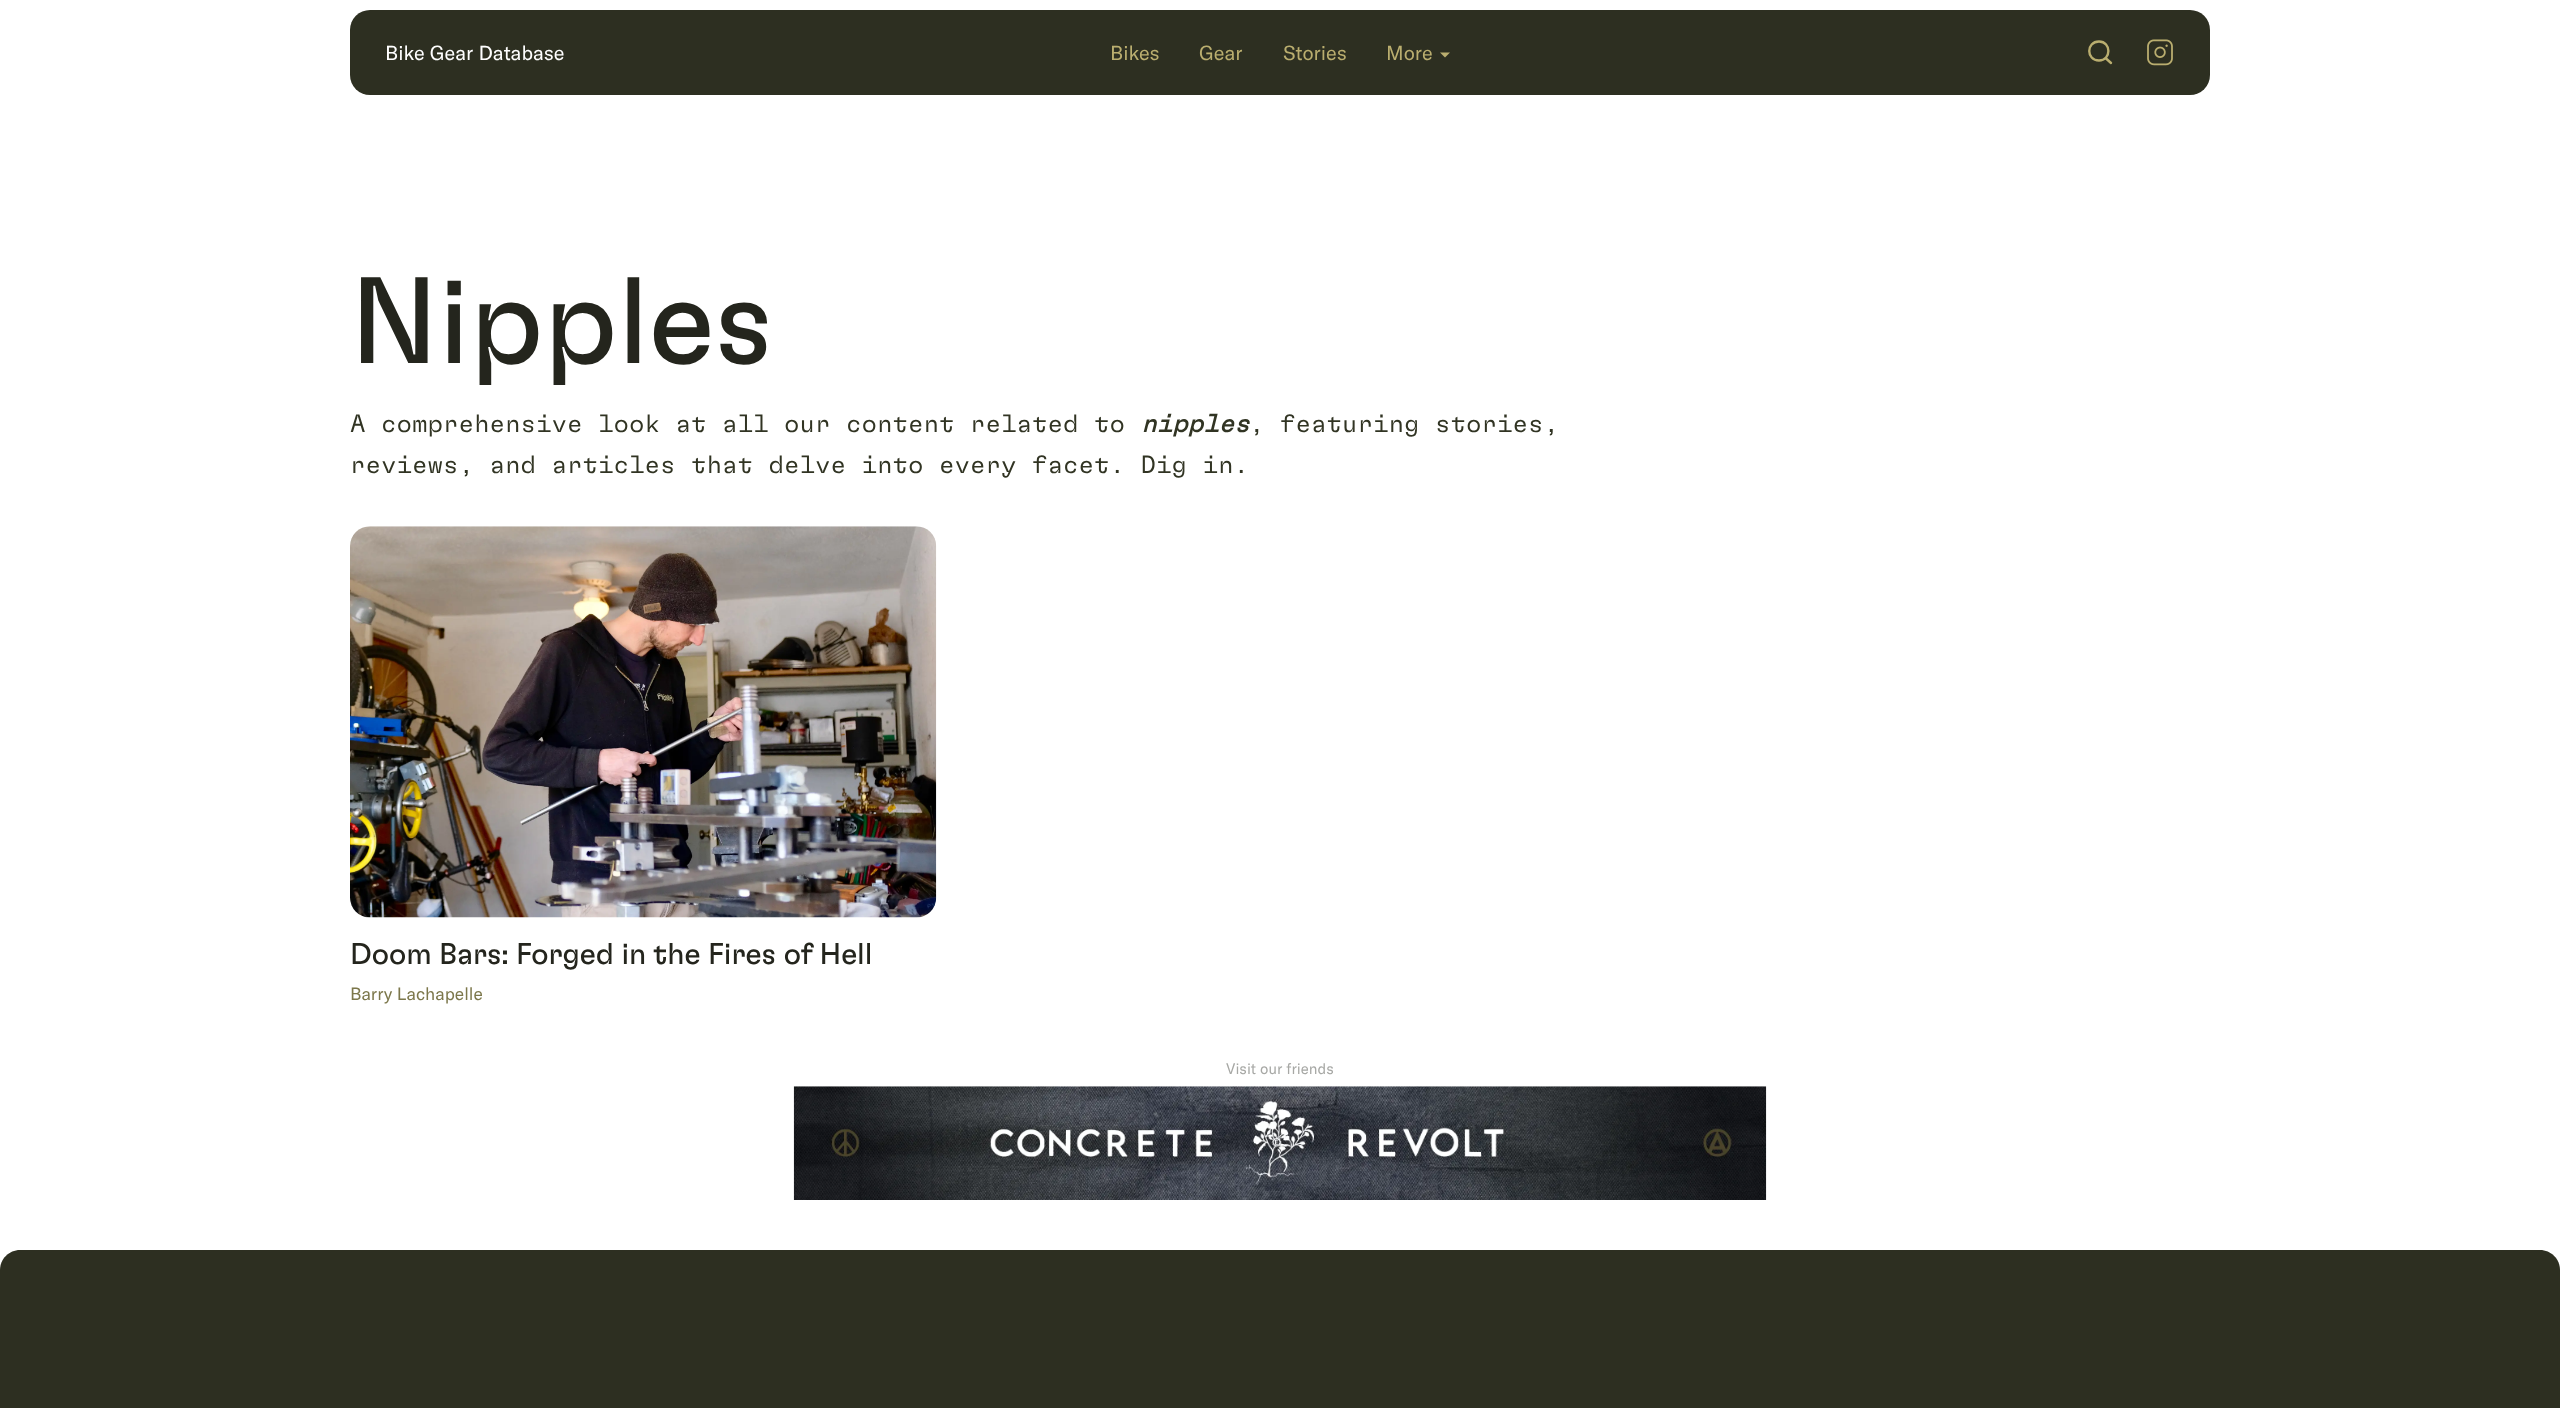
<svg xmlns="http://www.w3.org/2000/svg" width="2560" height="1408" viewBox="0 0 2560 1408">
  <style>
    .t1 { font: 20px GT America; fill: #fff; }
    .t2 { font: 20px GT America; fill: #baae6f; }
    .t3 { font: 122.5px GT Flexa; fill: #24251d; }
    .t4 { font: 300 25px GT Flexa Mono; fill: #313423; }
    .t5 { font: italic bold 25px GT Flexa Mono; fill: #313423; }
    .t6 { font: 30px GT Flexa; fill: #24251d; }
    .t7 { font: 17.5px GT America; fill: #7c774b; }
    .t8 { font: 15px GT America; fill: #a7a8a5; }
  </style>
  <rect width="100%" height="100%" fill="#fff"/>
  <rect x="350" y="10" width="1860" height="85" rx="20" fill="#2d2f21"/>
  <text x="385" y="60" class="t1">Bike Gear Database</text>
  <text x="1110" y="60" class="t2">Bikes</text>
  <text x="1199" y="60" class="t2">Gear</text>
  <text x="1283" y="60" class="t2">Stories</text>
  <text x="1386" y="60" class="t2">More</text>
  <path d="M1440 52.5H1450L1445 57.5Z" fill="#baae6f"/>
  <path d="M2099 60.5C2111.5 60.5 2111.5 41.5 2099 41.5C2086 41.5 2086 60.5 2099 60.5ZM2111 63L2105.5 58" fill="none" stroke="#baae6f" stroke-width="2.4" stroke-linecap="round" stroke-linejoin="round"/>
  <image x="2147" y="39" width="26" height="27" href="images/1.png"/>
  <text x="350" y="363" class="t3">Nipples</text>
  <text x="350" y="432" class="t4">A comprehensive look at all our content related to</text>
  <text x="1141" y="432" class="t5">nipples</text>
  <text x="1249" y="432" class="t4">, featuring stories,</text>
  <text x="350" y="473" class="t4">reviews, and articles that delve into every facet. Dig in.</text>
  <image x="350" y="526" width="587" height="392" href="images/2.png"/>
  <text x="350" y="964" class="t6">Doom Bars: Forged in the Fires of Hell</text>
  <text x="350" y="1000" class="t7">Barry Lachapelle</text>
  <text x="1226" y="1074" class="t8">Visit our friends</text>
  <image x="793" y="1086" width="974" height="114" href="images/3.png"/>
  <path d="M20 1250H2540C2551 1250 2560 1259 2560 1270V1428H0V1270C0 1259 9 1250 20 1250Z" fill="#2d2f21"/>
</svg>
